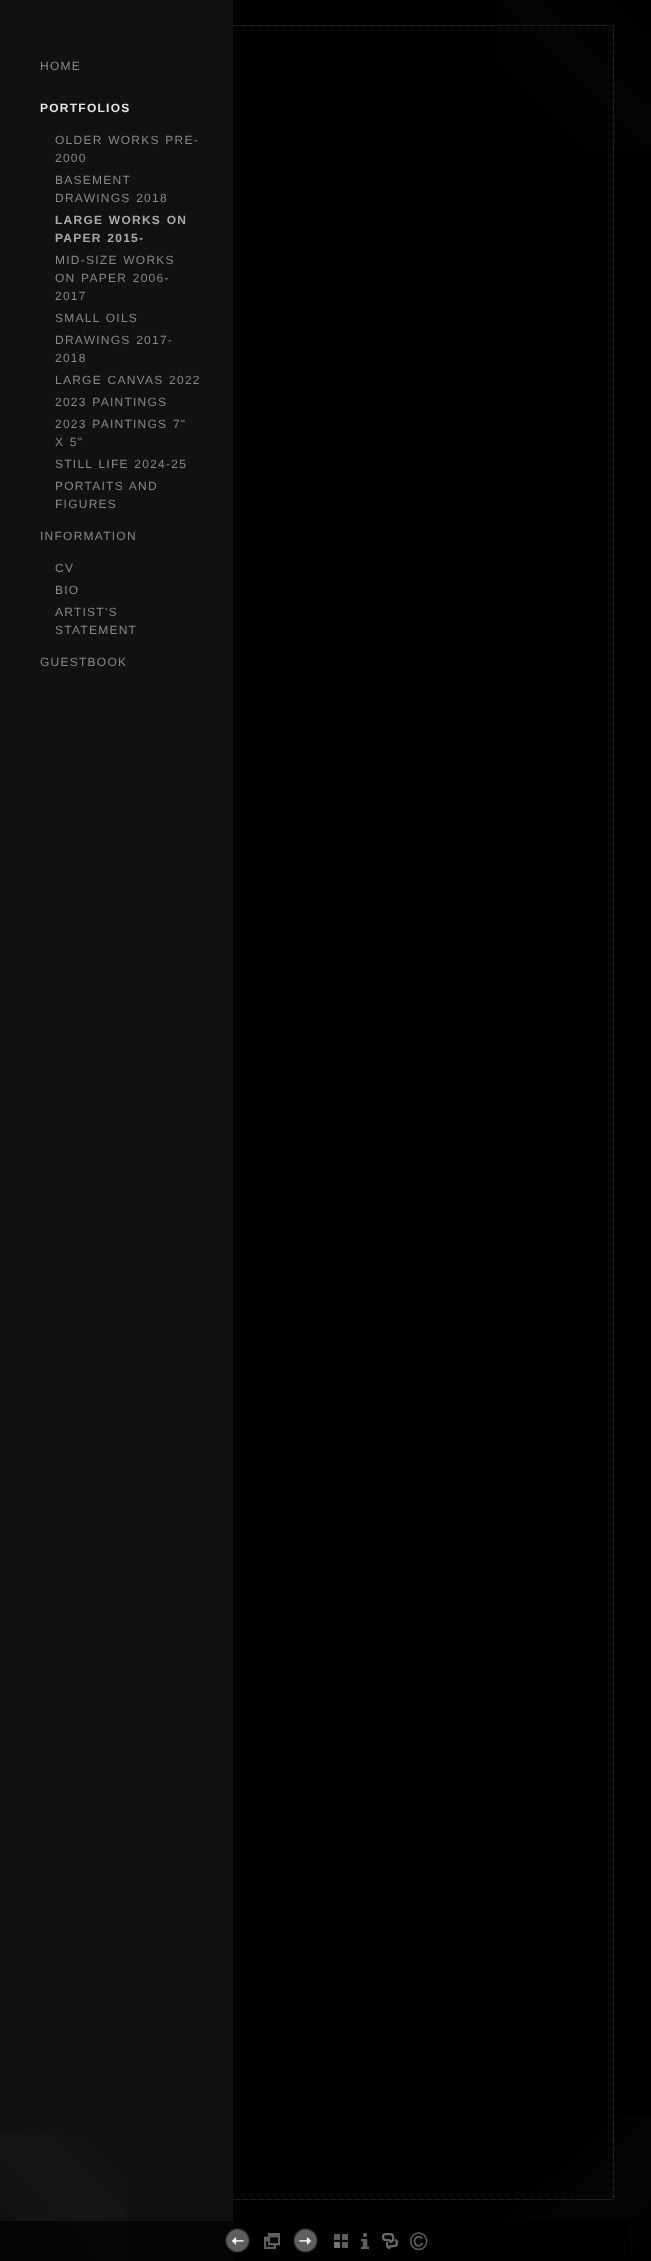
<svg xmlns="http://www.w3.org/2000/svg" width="651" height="2261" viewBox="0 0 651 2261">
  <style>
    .t1 { font: 12px Liberation Sans; letter-spacing: 1.25px; fill: #888; }
    .t2 { font: bold 12px Liberation Sans; letter-spacing: 1.25px; fill: #e5e5e5; }
    .t3 { font: bold 12px Liberation Sans; letter-spacing: 1.25px; fill: #aaa; }
  </style>
  <rect width="100%" height="100%" fill="#000"/>
  <path d="M39 25.5H614" fill="none" stroke="#333" stroke-dasharray="1 1"/>
  <path d="M613.5 25V2200" fill="none" stroke="#333" stroke-dasharray="1 1"/>
  <image x="496" y="0" width="155" height="152" href="images/1.png"/>
  <path d="M39 2199.5H614" fill="none" stroke="#333" stroke-dasharray="1 1"/>
  <image x="504" y="2116" width="147" height="145" href="images/2.png"/>
  <rect x="0" y="0" width="233" height="2261" fill="#111"/>
  <text x="40" y="70" class="t1">HOME</text>
  <text x="40" y="112" class="t2">PORTFOLIOS</text>
  <text x="55" y="144" word-spacing="1" class="t1">OLDER WORKS PRE-</text>
  <text x="55" y="162" class="t1">2000</text>
  <text x="55" y="184" class="t1">BASEMENT</text>
  <text x="55" y="202" word-spacing="1" class="t1">DRAWINGS 2018</text>
  <text x="55" y="224" word-spacing="1" class="t3">LARGE WORKS ON</text>
  <text x="55" y="242" word-spacing="1" class="t3">PAPER 2015-</text>
  <text x="55" y="264" word-spacing="1" class="t1">MID-SIZE WORKS</text>
  <text x="55" y="282" word-spacing="1" class="t1">ON PAPER 2006-</text>
  <text x="55" y="300" class="t1">2017</text>
  <text x="55" y="322" word-spacing="1" class="t1">SMALL OILS</text>
  <text x="55" y="344" word-spacing="1" class="t1">DRAWINGS 2017-</text>
  <text x="55" y="362" class="t1">2018</text>
  <text x="55" y="384" word-spacing="1" class="t1">LARGE CANVAS 2022</text>
  <text x="55" y="406" word-spacing="1" class="t1">2023 PAINTINGS</text>
  <text x="55" y="428" word-spacing="1" class="t1">2023 PAINTINGS 7"</text>
  <text x="55" y="446" word-spacing="1" class="t1">X 5"</text>
  <text x="55" y="468" word-spacing="1" class="t1">STILL LIFE 2024-25</text>
  <text x="55" y="490" word-spacing="1" class="t1">PORTAITS AND</text>
  <text x="55" y="508" class="t1">FIGURES</text>
  <text x="40" y="540" class="t1">INFORMATION</text>
  <text x="55" y="572" class="t1">CV</text>
  <text x="55" y="594" class="t1">BIO</text>
  <text x="55" y="616" class="t1">ARTIST'S</text>
  <text x="55" y="634" class="t1">STATEMENT</text>
  <text x="40" y="666" class="t1">GUESTBOOK</text>
  <image x="0" y="2134" width="127" height="127" href="images/3.png"/>
  <rect x="0" y="2221" width="629" height="40" fill="#000000b3"/>
  <image x="225" y="2228" width="25" height="25" href="images/4.png"/>
  <image x="264" y="2233" width="16" height="16" href="images/5.png"/>
  <image x="264" y="2236" width="16" height="10" href="images/6.png"/>
  <image x="293" y="2228" width="25" height="25" href="images/7.png"/>
  <image x="334" y="2234" width="14" height="14" href="images/8.png"/>
  <image x="361" y="2233" width="8" height="16" href="images/9.png"/>
  <image x="382" y="2233" width="16" height="16" href="images/10.png"/>
  <image x="410" y="2232" width="18" height="19" href="images/11.png"/>
</svg>
